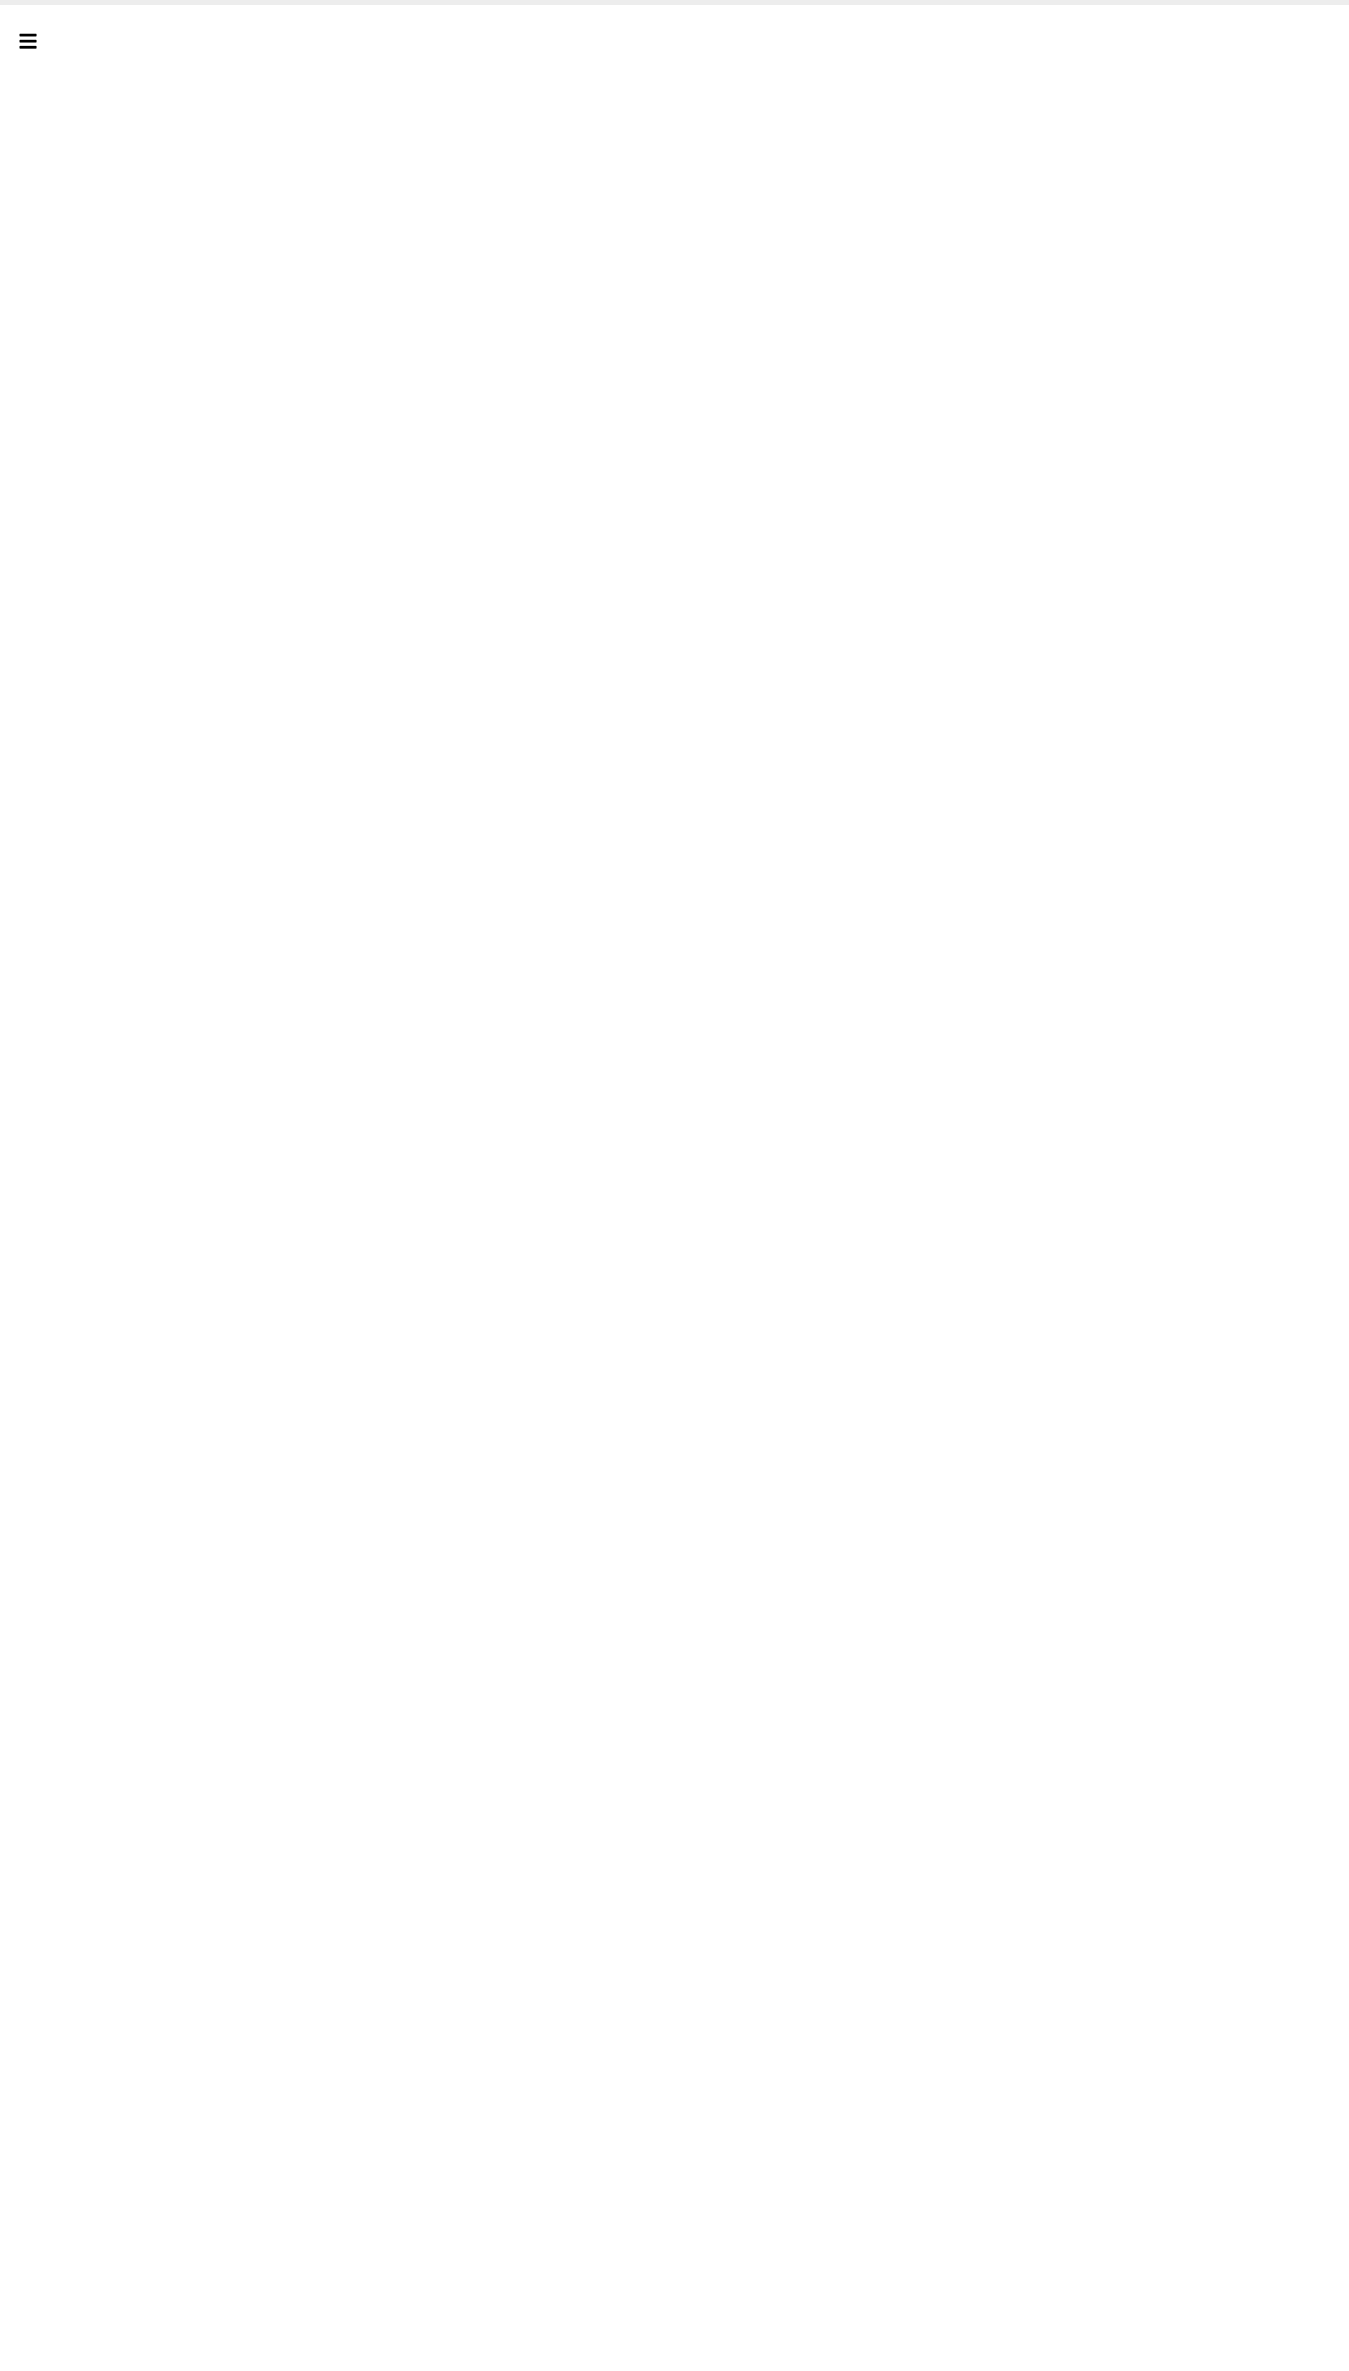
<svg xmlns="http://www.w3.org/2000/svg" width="1349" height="2371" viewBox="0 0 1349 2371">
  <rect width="100%" height="100%" fill="#fff"/>
  <rect x="0" y="0" width="1349" height="5" fill="#ededed"/>
  <image x="19" y="33" width="18" height="16" href="images/1.png"/>
</svg>
